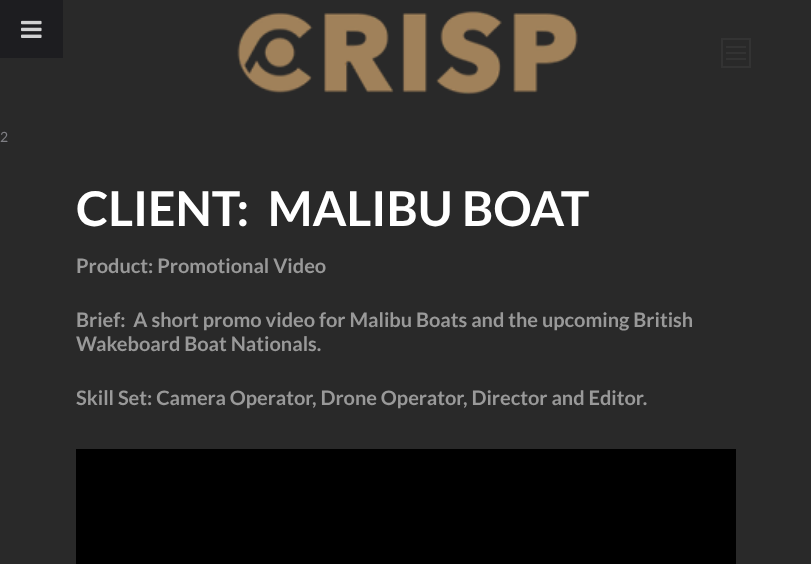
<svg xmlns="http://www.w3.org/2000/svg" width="811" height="564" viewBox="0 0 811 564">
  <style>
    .t1 { font: 14px Lato; fill: #7f7f84; }
    .t2 { font: bold 48px Lato; fill: #fff; }
    .t3 { font: bold 20px Lato; fill: #999; }
  </style>
  <rect width="100%" height="100%" fill="#292929"/>
  <rect x="0" y="0" width="63" height="58" fill="#1d1d20"/>
  <image x="21" y="20" width="21" height="18" href="images/1.png"/>
  <image x="237" y="11" width="341" height="84" href="images/2.png"/>
  <rect x="722" y="39" width="28" height="28" fill="none" stroke="#333" stroke-width="2"/>
  <rect x="726" y="52" width="20" height="2" fill="#333"/>
  <rect x="726" y="46" width="20" height="2" fill="#333"/>
  <rect x="726" y="58" width="20" height="2" fill="#333"/>
  <text x="0" y="142" class="t1">2</text>
  <text x="76" y="226" class="t2" xml:space="preserve">CLIENT:  MALIBU BOAT</text>
  <text x="76" y="273" class="t3">Product: Promotional Video</text>
  <text x="76" y="327" class="t3" xml:space="preserve">Brief:  A short promo video for Malibu Boats and the upcoming British</text>
  <text x="76" y="351" class="t3">Wakeboard Boat Nationals.</text>
  <text x="76" y="405" class="t3">Skill Set: Camera Operator, Drone Operator, Director and Editor.</text>
  <rect x="76" y="449" width="660" height="115" fill="#000"/>
</svg>
